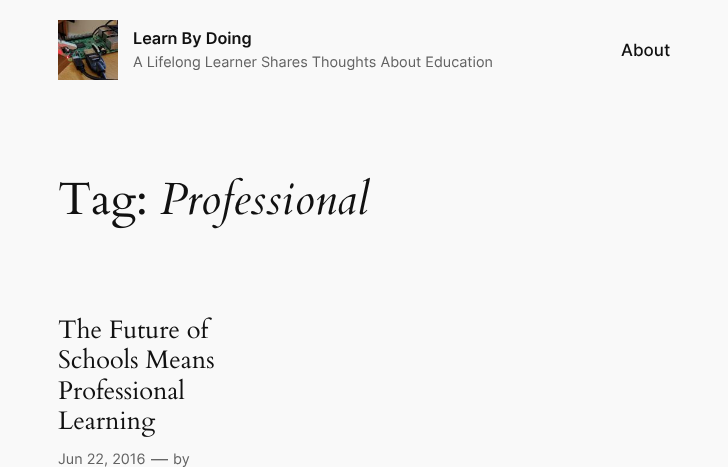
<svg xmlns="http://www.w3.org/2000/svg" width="728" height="467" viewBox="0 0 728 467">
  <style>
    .t1 { font: 600 16.25px Inter; fill: #111; }
    .t2 { font: 14.4px Inter; fill: #636363; }
    .t3 { font: 500 17px Inter; fill: #111; }
    .t4 { font: italic 45.25px Cardo; fill: #111; }
    .t5 { font: 17px Inter; fill: #636363; }
  </style>
  <rect width="100%" height="100%" fill="#f9f9f9"/>
  <image x="58" y="20" width="60" height="60" href="images/1.png"/>
  <text x="133" y="44" class="t1">Learn By Doing</text>
  <text x="133" y="67" class="t2">A Lifelong Learner Shares Thoughts About Education</text>
  <text x="621" y="56" class="t3">About</text>
  <image x="59" y="182" width="86" height="47" href="images/2.png"/>
  <text x="160" y="214" class="t4">Professional</text>
  <image x="58" y="317" width="154" height="22" href="images/3.png"/>
  <image x="59" y="347" width="155" height="22" href="images/4.png"/>
  <image x="58" y="378" width="127" height="22" href="images/5.png"/>
  <image x="58" y="411" width="98" height="26" href="images/6.png"/>
  <text x="58" y="464" class="t2">Jun 22, 2016</text>
  <text x="151" y="465" class="t5">—</text>
  <text x="173" y="464" class="t2">by</text>
</svg>
